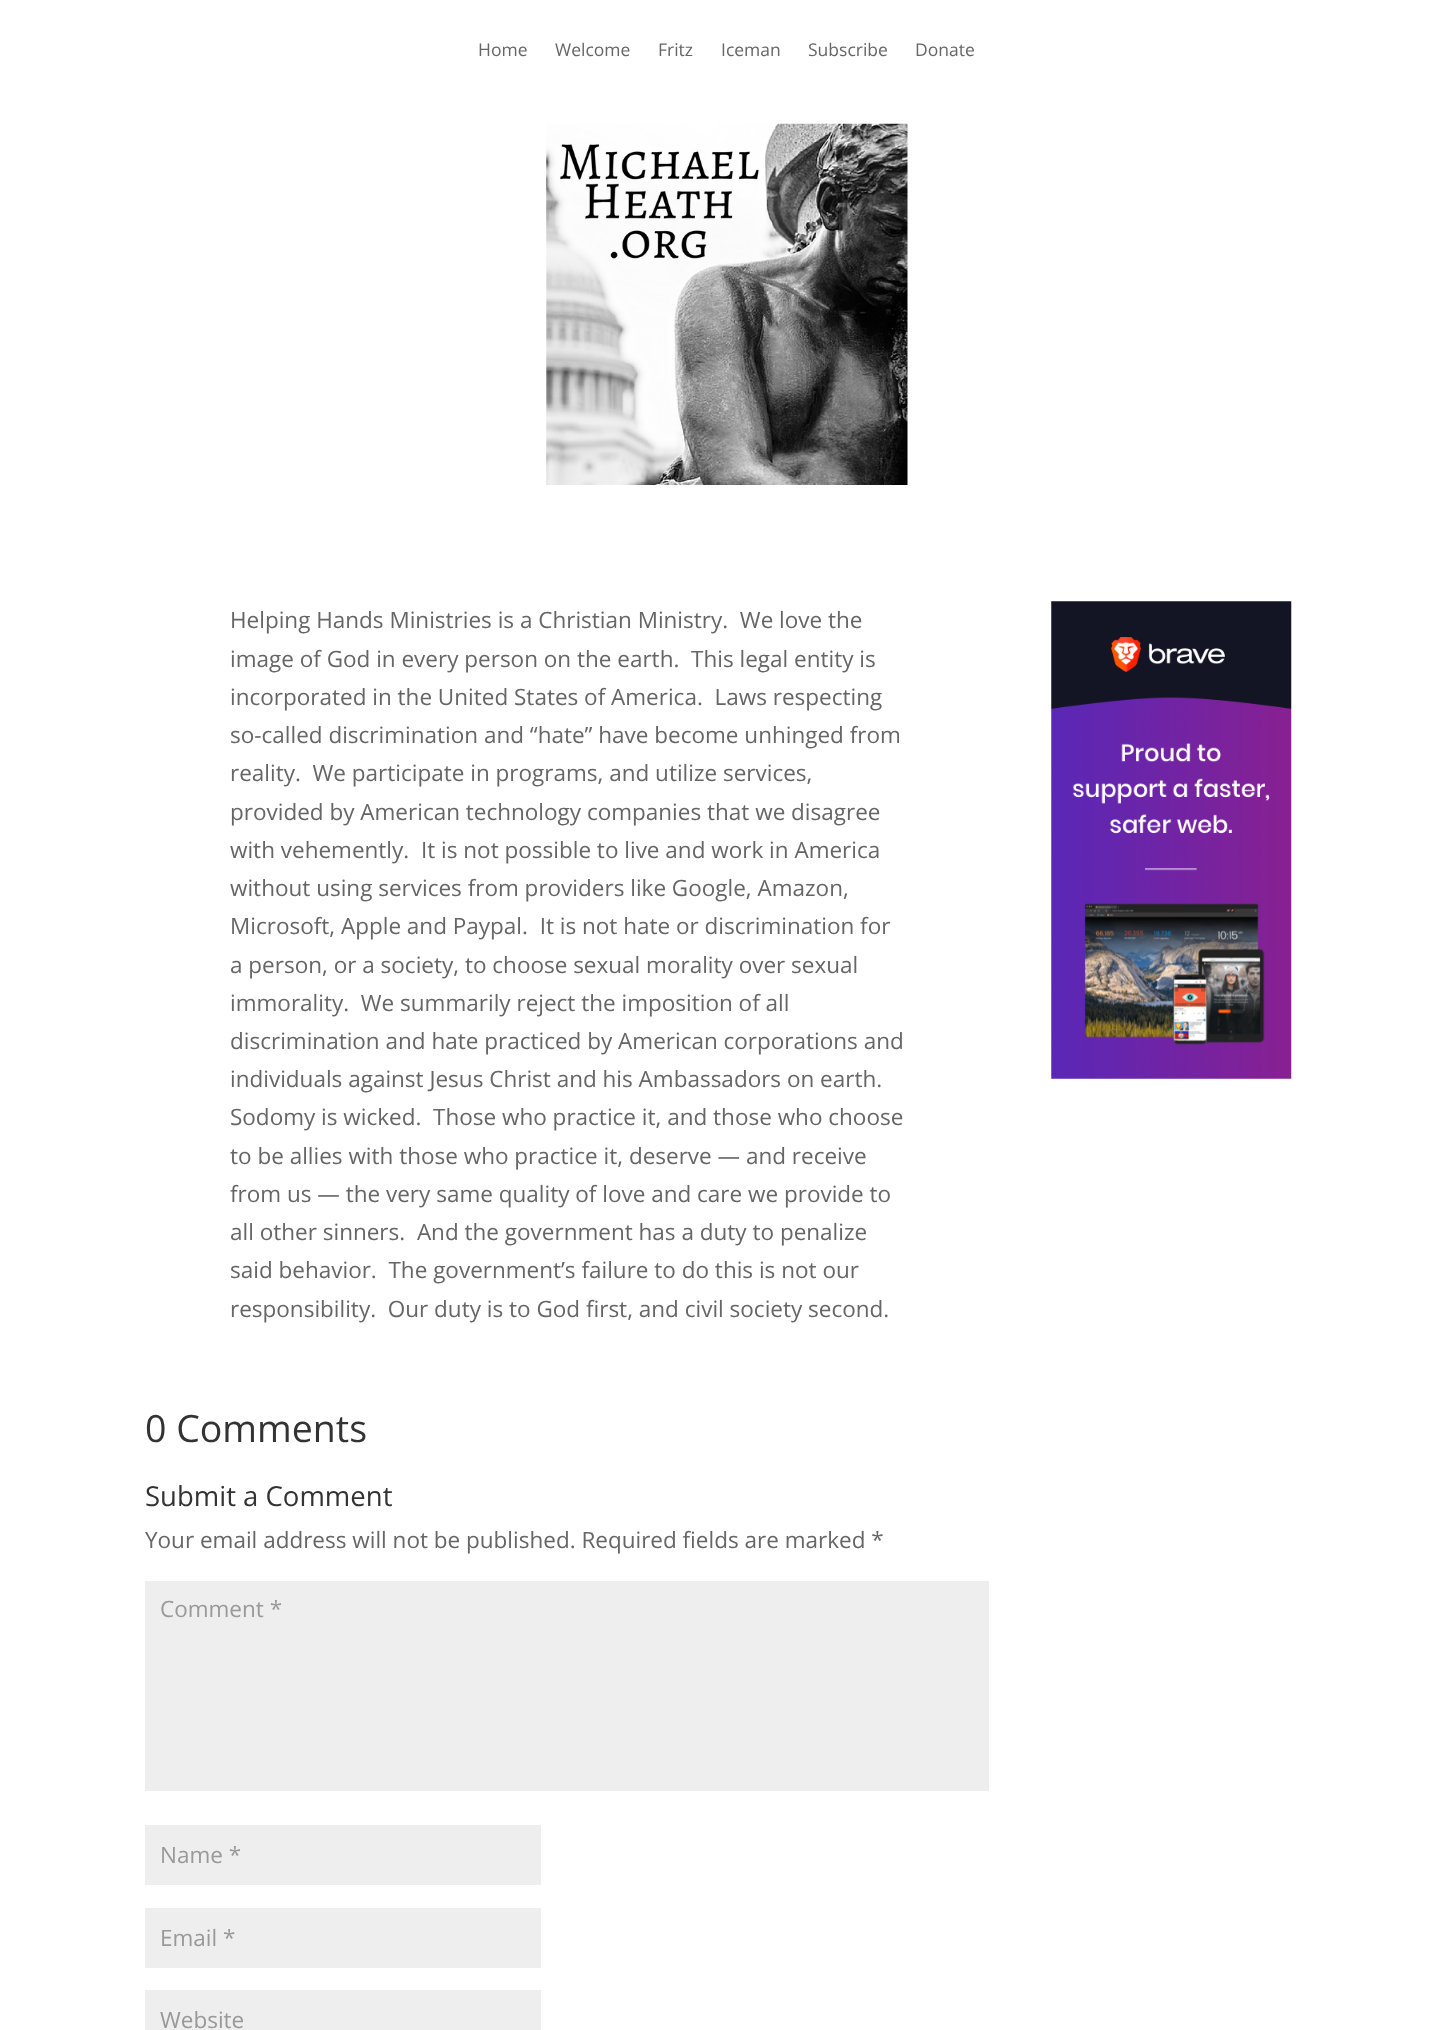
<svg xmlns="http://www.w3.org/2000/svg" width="1453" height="2030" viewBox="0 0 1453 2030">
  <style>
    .t1 { font: 17.5px Open Sans; fill: #666; }
    .t2 { font: 22.5px Open Sans; fill: #666; }
    .t3 { font: 37.5px Open Sans; fill: #333; }
    .t4 { font: 27.5px Open Sans; fill: #333; }
    .t5 { font: 22.5px Open Sans; fill: #999; }
  </style>
  <rect width="100%" height="100%" fill="#fff"/>
  <text x="478" y="56" class="t1">Home</text>
  <text x="555" y="56" class="t1">Welcome</text>
  <text x="658" y="56" class="t1">Fritz</text>
  <text x="721" y="56" class="t1">Iceman</text>
  <text x="808" y="56" class="t1">Subscribe</text>
  <text x="915" y="56" class="t1">Donate</text>
  <image x="546" y="123" width="362" height="362" href="images/1.png"/>
  <text x="230" y="628" class="t2" xml:space="preserve">Helping Hands Ministries is a Christian Ministry.  We love the</text>
  <text x="230" y="667" class="t2" xml:space="preserve">image of God in every person on the earth.  This legal entity is</text>
  <text x="230" y="705" class="t2" xml:space="preserve">incorporated in the United States of America.  Laws respecting</text>
  <text x="230" y="743" class="t2">so-called discrimination and “hate” have become unhinged from</text>
  <text x="230" y="781" class="t2" xml:space="preserve">reality.  We participate in programs, and utilize services,</text>
  <text x="230" y="820" class="t2">provided by American technology companies that we disagree</text>
  <text x="230" y="858" class="t2" xml:space="preserve">with vehemently.  It is not possible to live and work in America</text>
  <text x="230" y="896" class="t2">without using services from providers like Google, Amazon,</text>
  <text x="230" y="934" class="t2" xml:space="preserve">Microsoft, Apple and Paypal.  It is not hate or discrimination for</text>
  <text x="230" y="973" class="t2">a person, or a society, to choose sexual morality over sexual</text>
  <text x="230" y="1011" class="t2" xml:space="preserve">immorality.  We summarily reject the imposition of all</text>
  <text x="230" y="1049" class="t2">discrimination and hate practiced by American corporations and</text>
  <text x="230" y="1087" class="t2">individuals against Jesus Christ and his Ambassadors on earth.</text>
  <text x="230" y="1125" class="t2" xml:space="preserve">Sodomy is wicked.  Those who practice it, and those who choose</text>
  <text x="230" y="1164" class="t2">to be allies with those who practice it, deserve — and receive</text>
  <text x="230" y="1202" class="t2">from us — the very same quality of love and care we provide to</text>
  <text x="230" y="1240" class="t2" xml:space="preserve">all other sinners.  And the government has a duty to penalize</text>
  <text x="230" y="1278" class="t2" xml:space="preserve">said behavior.  The government’s failure to do this is not our</text>
  <text x="230" y="1317" class="t2" xml:space="preserve">responsibility.  Our duty is to God first, and civil society second.</text>
  <text x="145" y="1442" class="t3">0 Comments</text>
  <text x="145" y="1506" class="t4">Submit a Comment</text>
  <text x="145" y="1548" class="t2">Your email address will not be published. Required fields are marked *</text>
  <rect x="145" y="1581" width="844" height="210" fill="#eee"/>
  <text x="160" y="1617" class="t5">Comment *</text>
  <rect x="145" y="1825" width="396" height="60" fill="#eee"/>
  <text x="160" y="1863" class="t5">Name *</text>
  <rect x="145" y="1908" width="396" height="60" fill="#eee"/>
  <text x="160" y="1946" class="t5">Email *</text>
  <rect x="145" y="1990" width="396" height="40" fill="#eee"/>
  <text x="160" y="2028" class="t5">Website</text>
  <image x="1051" y="601" width="241" height="478" href="images/2.png"/>
</svg>
